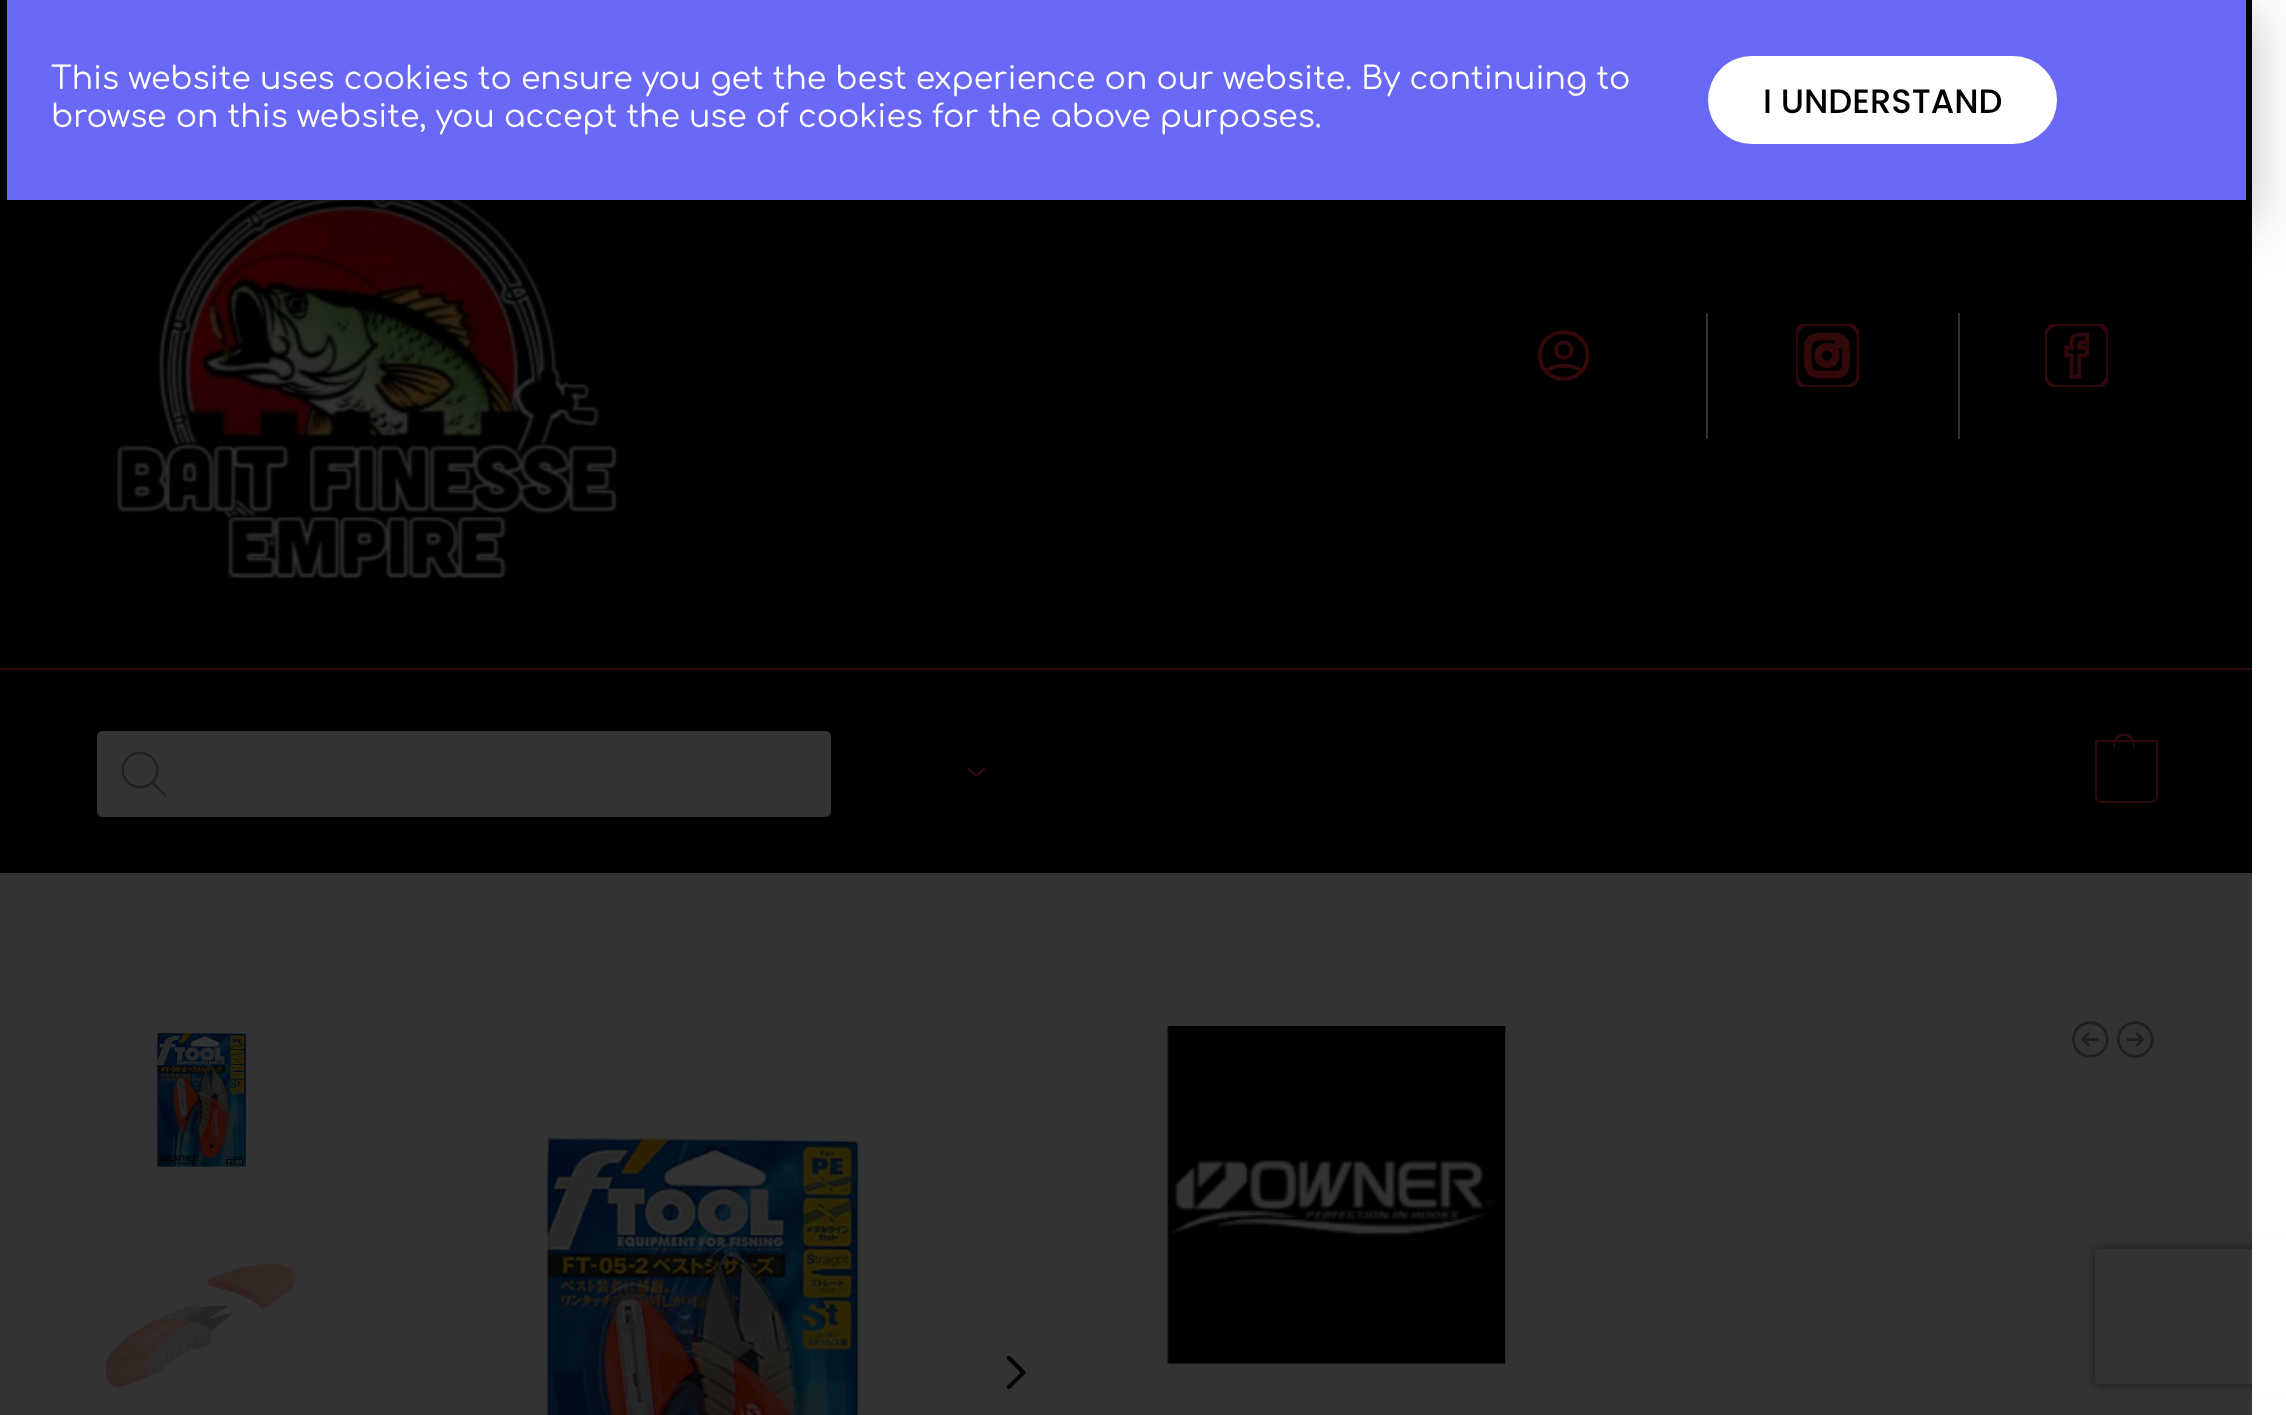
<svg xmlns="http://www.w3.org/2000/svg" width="2286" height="1415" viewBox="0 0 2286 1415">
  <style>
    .t1 { font: 31.5px Comfortaa; fill: #fff; }
    .t2 { font: 500 33.75px Poppins; fill: #000; }
  </style>
  <defs>
    <clipPath id="clip1"><rect x="122" y="752" width="45" height="45"/></clipPath>
    <clipPath id="clip2"><path d="M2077 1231H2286V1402H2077ZM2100 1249H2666C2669 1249 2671 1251 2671 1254V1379C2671 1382 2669 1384 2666 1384H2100C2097 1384 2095 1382 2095 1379V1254C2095 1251 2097 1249 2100 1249Z" clip-rule="evenodd"/></clipPath>
  </defs>
  <rect width="100%" height="100%" fill="#fff"/>
  <rect x="0" y="0" width="2252" height="668" fill="#000"/>
  <image x="114" y="200" width="505" height="384" href="images/1.png"/>
  <path d="M1545.5 370.5C1557 364.5 1570.5 364.5 1582 370.5M1571.5 350C1571.5 360.5 1556 360.5 1556 350C1556 340 1571.5 340 1571.5 350ZM1587.5 355.5C1587.5 386.5 1540 386.5 1540 355.5C1540 324.5 1587.5 324.5 1587.5 355.5Z" fill="none" stroke="#ff2a2a" stroke-width="3.9" stroke-linecap="round" stroke-linejoin="round"/>
  <rect x="1706" y="313" width="2" height="126" fill="#eee"/>
  <image x="1796" y="324" width="63" height="63" href="images/2.png"/>
  <rect x="1958" y="313" width="2" height="126" fill="#eee"/>
  <image x="2045" y="324" width="63" height="63" href="images/3.png"/>
  <rect x="0" y="670" width="2252" height="203" fill="#000"/>
  <rect x="0" y="668" width="2252" height="2" fill="#ff2a2a"/>
  <rect x="96" y="730" width="736" height="88" rx="6" fill="#fff" stroke="#000" stroke-width="2"/>
  <g clip-path="url(#clip1)">
    <path d="M166 795L154 782C169 765 144 740 127 757C110 774 135 799 152 784L165 796ZM124 770C124 749 156 749 156 770C156 791 124 791 124 770Z" fill="#a6a6a6"/>
  </g>
  <path d="M984.5 768.5L976.5 776L968.5 768.5" fill="none" stroke="#ff2a2a" stroke-width="2.2" stroke-linecap="round" stroke-linejoin="round"/>
  <path d="M2096 741H2157V796C2157 799.5 2154.5 802 2151 802H2102C2098.5 802 2096 799.5 2096 796Z" fill="none" stroke="#ff2a2a" stroke-width="2"/>
  <path d="M2124 733.5C2130 733.5 2135 738.5 2135 745V747H2113V745C2113 738.5 2118 733.5 2124 733.5ZM2124 736C2129 736 2133 740 2133 745V747H2115V745C2115 740 2119 736 2124 736Z" fill="#ff2a2a" fill-rule="evenodd"/>
  <image x="156" y="1032" width="91" height="136" href="images/4.png"/>
  <image x="105" y="1263" width="191" height="124" href="images/5.png"/>
  <image x="542" y="1135" width="320" height="280" href="images/6.png"/>
  <path d="M1009 1387L1023.5 1372.5L1009 1358" fill="none" stroke="#111" stroke-width="4.1" stroke-linecap="round" stroke-linejoin="round"/>
  <image x="1167" y="1026" width="339" height="339" href="images/7.png"/>
  <image x="2072" y="1021" width="37" height="37" href="images/8.png"/>
  <image x="2117" y="1021" width="37" height="37" href="images/9.png"/>
  <g clip-path="url(#clip2)">
    <rect x="2095" y="1249" width="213" height="135" rx="5" fill="#808080" filter="blur(5.5px)"/>
  </g>
  <rect x="2252" y="1238" width="34" height="157" fill="#fff"/>
  <rect x="0" y="200" width="2252" height="1215" fill="#000000cc"/>
  <rect x="5" y="11" width="2252" height="214" fill="#00000033" filter="blur(26px)"/>
  <rect x="7" y="0" width="2239" height="200" fill="#6a68f6"/>
  <text x="51" y="89" class="t1">This website uses cookies to ensure you get the best experience on our website. By continuing to</text>
  <text x="51" y="127" class="t1">browse on this website, you accept the use of cookies for the above purposes.</text>
  <rect x="1708" y="56" width="349" height="88" rx="44" fill="#fff"/>
  <text x="1763" y="113" class="t2">I UNDERSTAND</text>
</svg>
